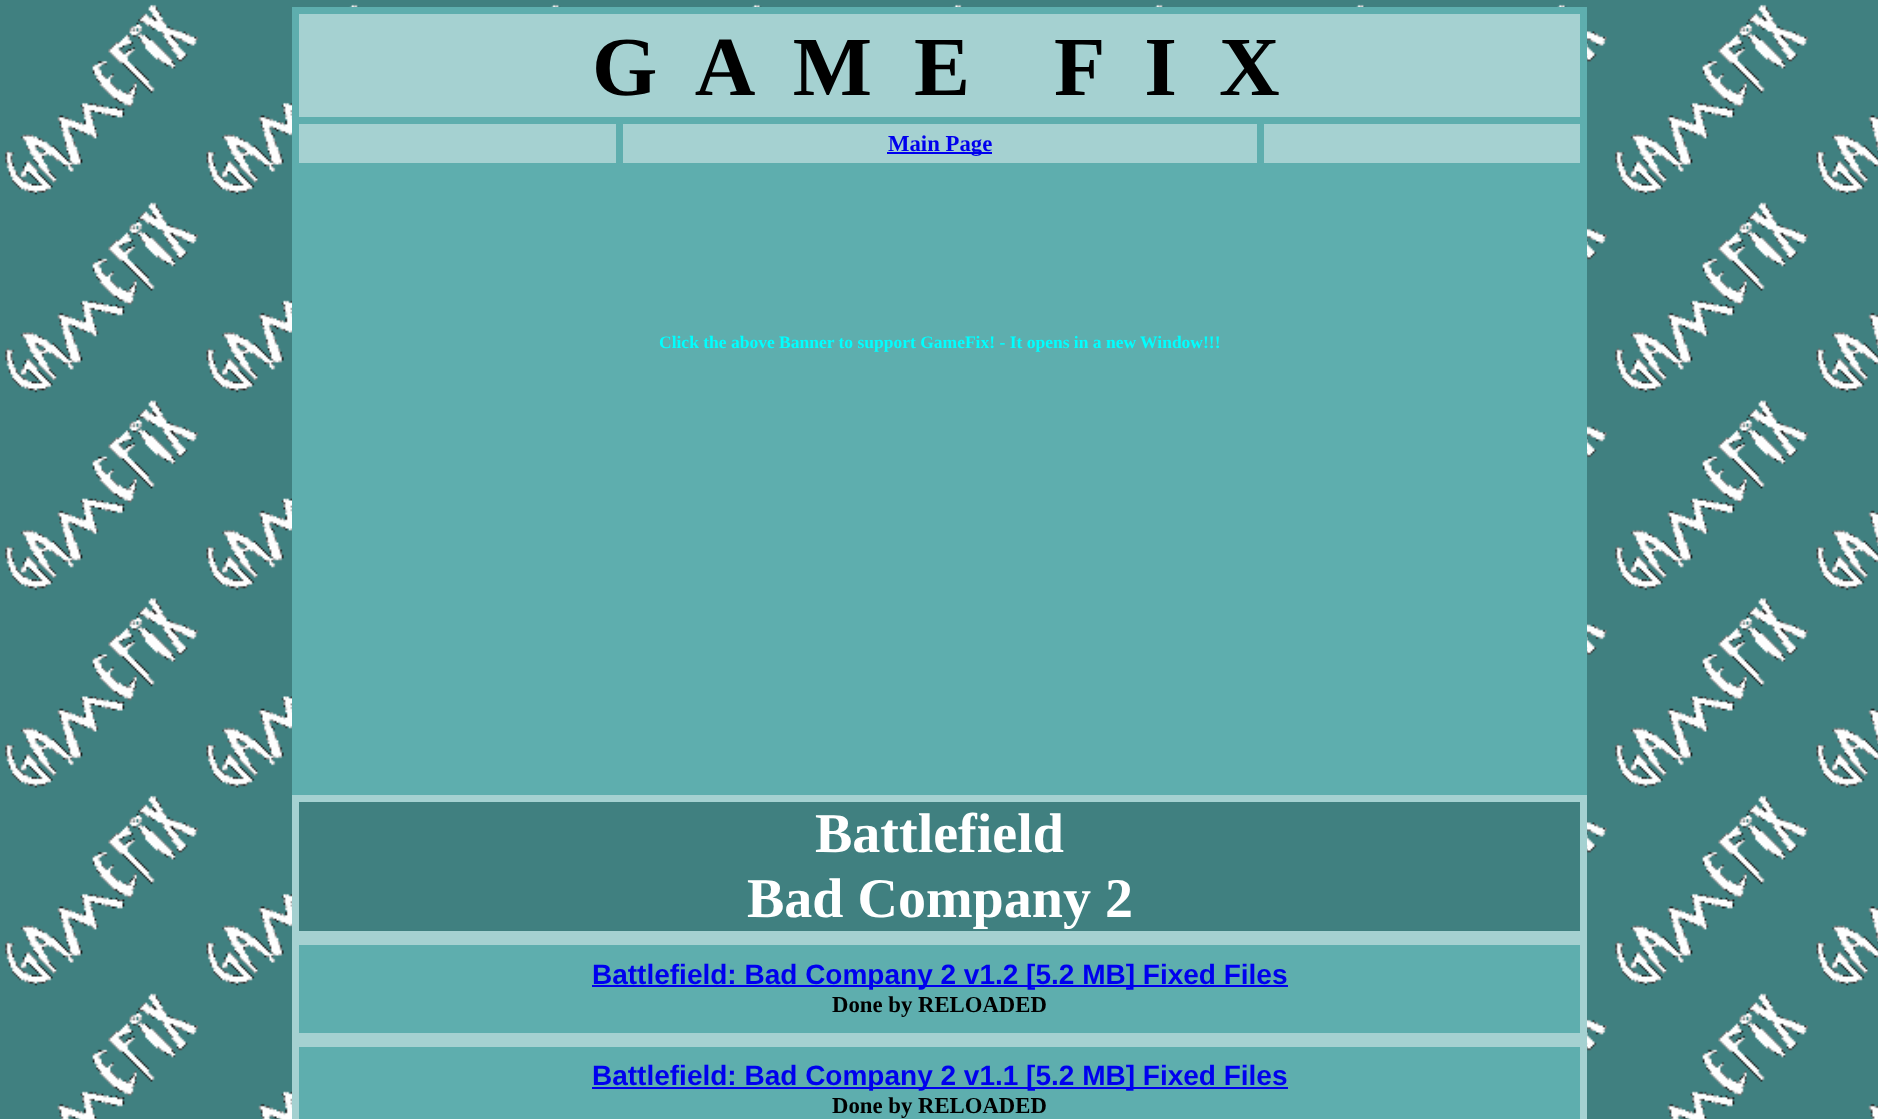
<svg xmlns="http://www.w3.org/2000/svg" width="1878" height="1119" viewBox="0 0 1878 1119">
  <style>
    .t1 { font: bold 84px Liberation Serif; fill: #000; }
    .t2 { font: bold 22.75px Liberation Serif; fill: #00e; }
    .t3 { font: bold 17.5px Liberation Serif; fill: #0ff; }
    .t4 { font: bold 56px Liberation Serif; fill: #fff; }
    .t5 { font: bold 28px Liberation Sans; fill: #00e; }
    .t6 { font: bold 22.75px Liberation Serif; fill: #000; }
  </style>
  <rect width="100%" height="100%" fill="#408080"/>
  <image x="4" y="4" width="1874" height="1115" href="images/1.png"/>
  <rect x="292" y="7" width="1295" height="788" fill="#5eaeae"/>
  <rect x="299" y="14" width="1281" height="103" fill="#a5d1d1"/>
  <text x="592" y="95" class="t1" xml:space="preserve">G  A  M  E    F  I  X</text>
  <rect x="299" y="124" width="317" height="39" fill="#a5d1d1"/>
  <rect x="623" y="124" width="634" height="39" fill="#a5d1d1"/>
  <rect x="887" y="152" width="105" height="2" fill="#00e"/>
  <text x="888" y="151" class="t2">Main Page</text>
  <rect x="1264" y="124" width="316" height="39" fill="#a5d1d1"/>
  <text x="659" y="348" class="t3">Click the above Banner to support GameFix! - It opens in a new Window!!!</text>
  <rect x="292" y="795" width="1295" height="324" fill="#a5d1d1"/>
  <rect x="299" y="802" width="1281" height="129" fill="#408080"/>
  <text x="815" y="852" class="t4">Battlefield</text>
  <text x="747" y="917" class="t4">Bad Company 2</text>
  <rect x="299" y="945" width="1281" height="88" fill="#5eaeae"/>
  <rect x="592" y="985" width="696" height="2" fill="#00e"/>
  <text x="592" y="984" class="t5">Battlefield: Bad Company 2 v1.2 [5.2 MB] Fixed Files</text>
  <text x="832" y="1012" class="t6">Done by RELOADED</text>
  <rect x="299" y="1047" width="1281" height="72" fill="#5eaeae"/>
  <rect x="592" y="1087" width="696" height="2" fill="#00e"/>
  <text x="592" y="1085" class="t5">Battlefield: Bad Company 2 v1.1 [5.2 MB] Fixed Files</text>
  <text x="832" y="1113" class="t6">Done by RELOADED</text>
</svg>
